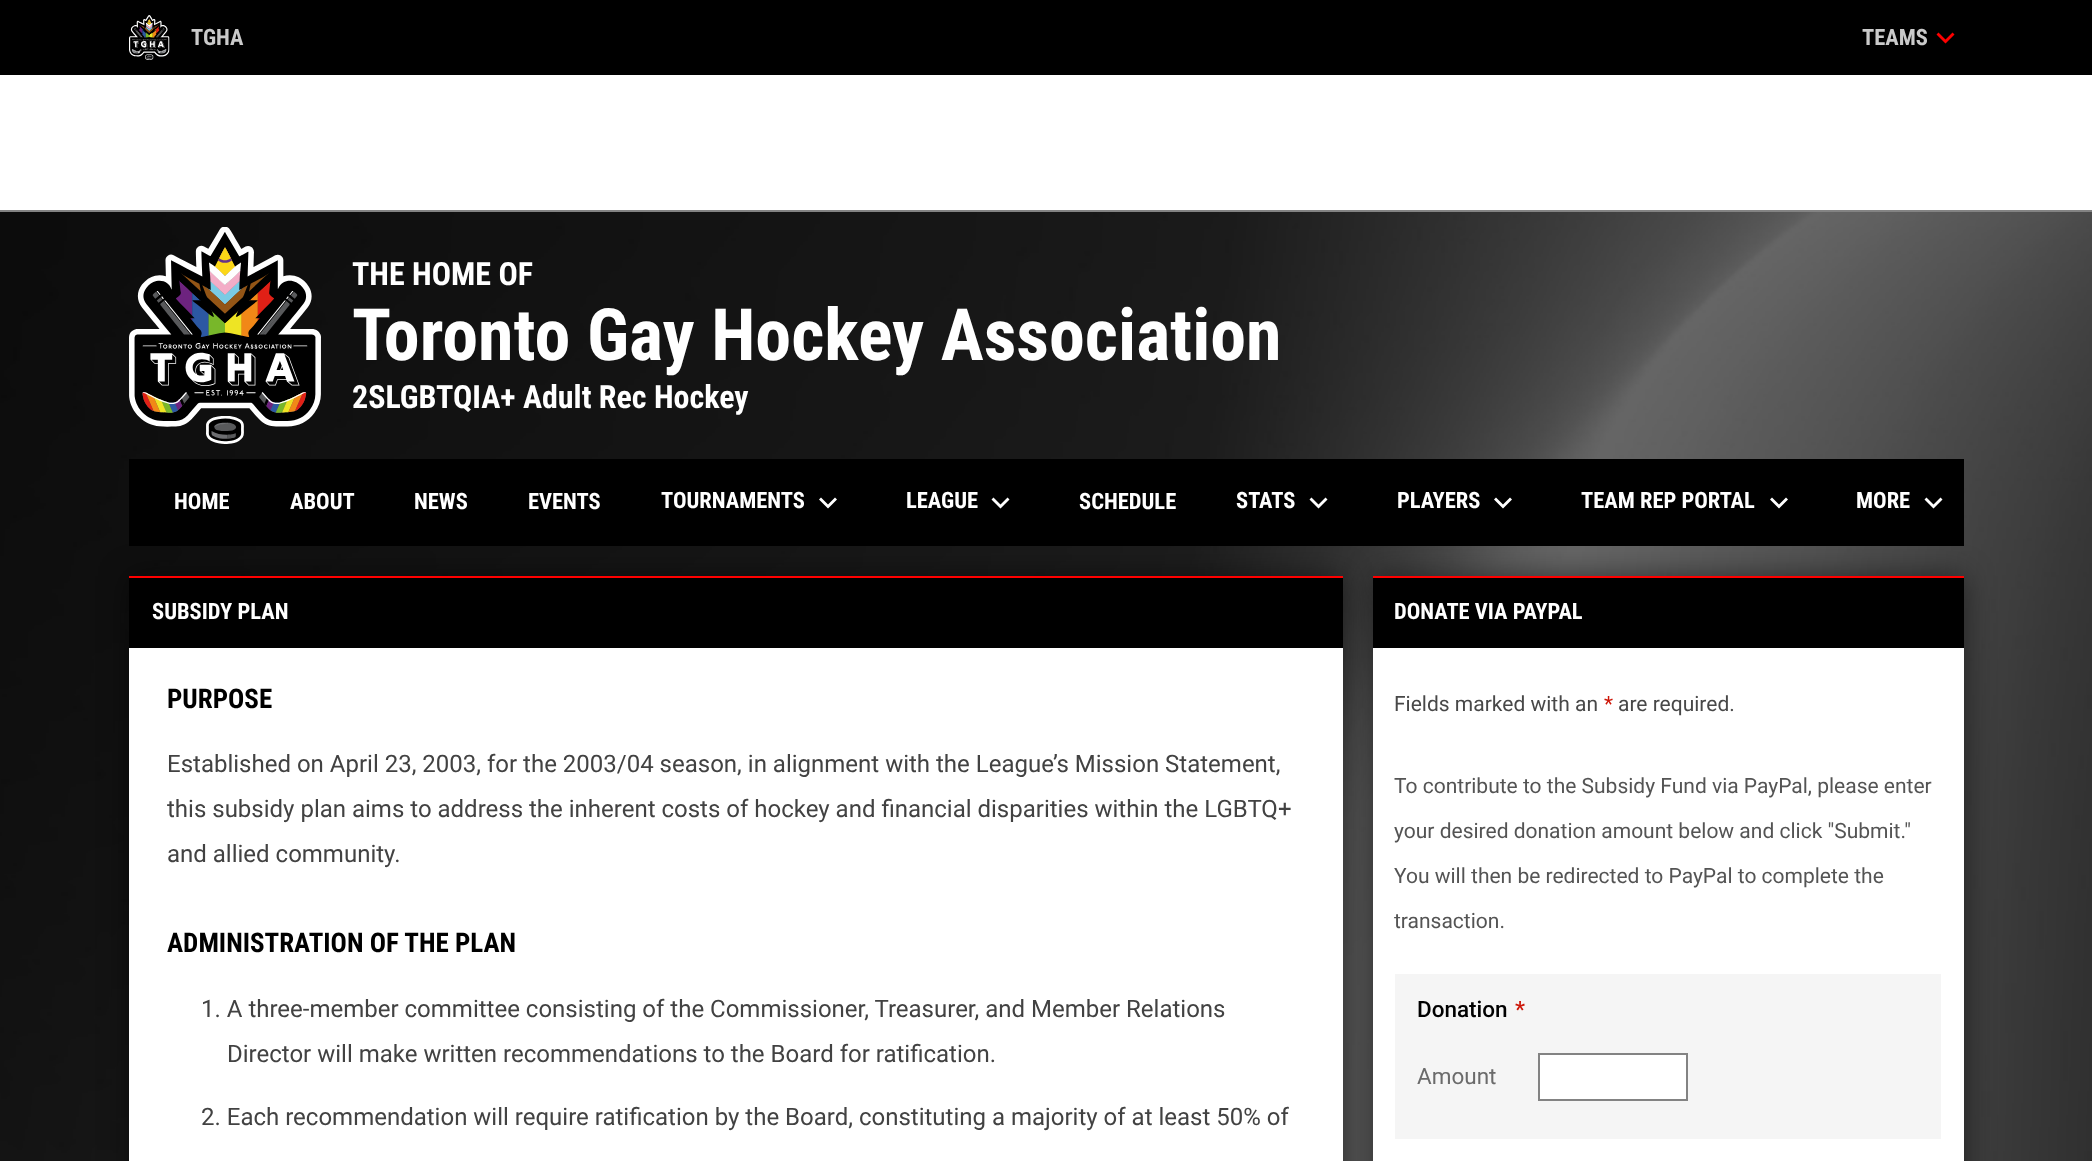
<svg xmlns="http://www.w3.org/2000/svg" width="2092" height="1161" viewBox="0 0 2092 1161">
  <style>
    .t1 { font: bold 22.5px Roboto Condensed; fill: #cacaca; }
    .t2 { font: bold 32px Roboto Condensed; fill: #fff; }
    .t3 { font: bold 72px Roboto Condensed; fill: #fff; }
    .t4 { font: bold 22.5px Roboto Condensed; fill: #fff; }
    .t5 { font: bold 27px Roboto Condensed; fill: #000; }
    .t6 { font: 24px Roboto; fill: #424242; }
    .t7 { font: 21px Roboto; fill: #484848; }
    .t8 { font: 21px Roboto; fill: #cd1608; }
    .t9 { font: 21px Roboto; fill: #545454; }
    .t10 { font: 500 22.5px Roboto; fill: #000; }
    .t11 { font: 500 22.5px Roboto; fill: #cd1608; }
    .t12 { font: 22.5px Roboto; fill: #6b6b6b; }
  </style>
  <rect width="100%" height="100%" fill="#fff"/>
  <rect x="0" y="0" width="2092" height="75" fill="#000"/>
  <image x="129" y="15" width="41" height="45" href="images/1.png"/>
  <text x="191" y="45" class="t1">TGHA</text>
  <text x="1862" y="45" class="t1">TEAMS</text>
  <path d="M1938.5 32.5L1945.5 39.5L1952.5 32.5L1954.5 34.5L1945.5 43.5L1936.5 34.5Z" fill="#f00"/>
  <rect x="0" y="210" width="2092" height="2" fill="#838383"/>
  <image x="0" y="212" width="2092" height="949" href="images/2.png"/>
  <image x="129" y="227" width="192" height="217" href="images/3.png"/>
  <text x="352" y="285" class="t2">THE HOME OF</text>
  <text x="352" y="360" class="t3">Toronto Gay Hockey Association</text>
  <text x="352" y="408" class="t2">2SLGBTQIA+ Adult Rec Hockey</text>
  <rect x="129" y="576" width="1214" height="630" fill="#00000080" filter="blur(15px)"/>
  <rect x="1373" y="576" width="591" height="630" fill="#00000080" filter="blur(15px)"/>
  <rect x="129" y="459" width="1835" height="87" fill="#000"/>
  <text x="174" y="509" class="t4">HOME</text>
  <text x="290" y="509" class="t4">ABOUT</text>
  <text x="414" y="509" class="t4">NEWS</text>
  <text x="528" y="509" class="t4">EVENTS</text>
  <text x="661" y="508" class="t4">TOURNAMENTS</text>
  <path d="M821 497.5L828 504.5L835 497.5L837 499.5L828 508.5L819 499.5Z" fill="#fff"/>
  <text x="906" y="508" class="t4">LEAGUE</text>
  <path d="M993.5 497.5L1000.5 504.5L1007.5 497.5L1009.5 499.5L1000.5 508.5L991.5 499.5Z" fill="#fff"/>
  <text x="1079" y="509" class="t4">SCHEDULE</text>
  <text x="1236" y="508" class="t4">STATS</text>
  <path d="M1311.5 497.5L1318.5 504.5L1325.5 497.5L1327.5 499.5L1318.5 508.5L1309.5 499.5Z" fill="#fff"/>
  <text x="1397" y="508" class="t4">PLAYERS</text>
  <path d="M1496 497.5L1503 504.5L1510 497.5L1512 499.5L1503 508.5L1494 499.5Z" fill="#fff"/>
  <text x="1581" y="508" class="t4">TEAM REP PORTAL</text>
  <path d="M1772 497.5L1779 504.5L1786 497.5L1788 499.5L1779 508.5L1770 499.5Z" fill="#fff"/>
  <text x="1856" y="508" class="t4">MORE</text>
  <path d="M1926.5 497.5L1933.5 504.5L1940.5 497.5L1942.5 499.5L1933.5 508.5L1924.5 499.5Z" fill="#fff"/>
  <rect x="129" y="578" width="1214" height="70" fill="#000"/>
  <rect x="129" y="576" width="1214" height="2" fill="#f00"/>
  <text x="152" y="619" class="t4">SUBSIDY PLAN</text>
  <rect x="129" y="648" width="1214" height="513" fill="#fff"/>
  <text x="167" y="708" class="t5">PURPOSE</text>
  <text x="167" y="772" class="t6">Established on April 23, 2003, for the 2003/04 season, in alignment with the League’s Mission Statement,</text>
  <text x="167" y="817" class="t6">this subsidy plan aims to address the inherent costs of hockey and financial disparities within the LGBTQ+</text>
  <text x="167" y="862" class="t6">and allied community.</text>
  <text x="167" y="952" class="t5">ADMINISTRATION OF THE PLAN</text>
  <text x="201" y="1017" class="t6">1. A three-member committee consisting of the Commissioner, Treasurer, and Member Relations</text>
  <text x="227" y="1062" class="t6">Director will make written recommendations to the Board for ratification.</text>
  <text x="201" y="1125" class="t6">2. Each recommendation will require ratification by the Board, constituting a majority of at least 50% of</text>
  <rect x="1373" y="578" width="591" height="70" fill="#000"/>
  <rect x="1373" y="576" width="591" height="2" fill="#f00"/>
  <text x="1394" y="619" class="t4">DONATE VIA PAYPAL</text>
  <rect x="1373" y="648" width="591" height="513" fill="#fff"/>
  <text x="1394" y="711" class="t7">Fields marked with an</text>
  <text x="1604" y="711" class="t8">*</text>
  <text x="1618" y="711" class="t7">are required.</text>
  <text x="1394" y="793" class="t9">To contribute to the Subsidy Fund via PayPal, please enter</text>
  <text x="1394" y="838" class="t9">your desired donation amount below and click "Submit."</text>
  <text x="1394" y="883" class="t9">You will then be redirected to PayPal to complete the</text>
  <text x="1394" y="928" class="t9">transaction.</text>
  <rect x="1395" y="974" width="546" height="165" fill="#f5f5f5"/>
  <text x="1417" y="1017" class="t10">Donation</text>
  <text x="1515" y="1017" class="t11">*</text>
  <text x="1417" y="1084" class="t12">Amount</text>
  <rect x="1539" y="1054" width="148" height="46" fill="#fff" stroke="#838383" stroke-width="2"/>
</svg>
